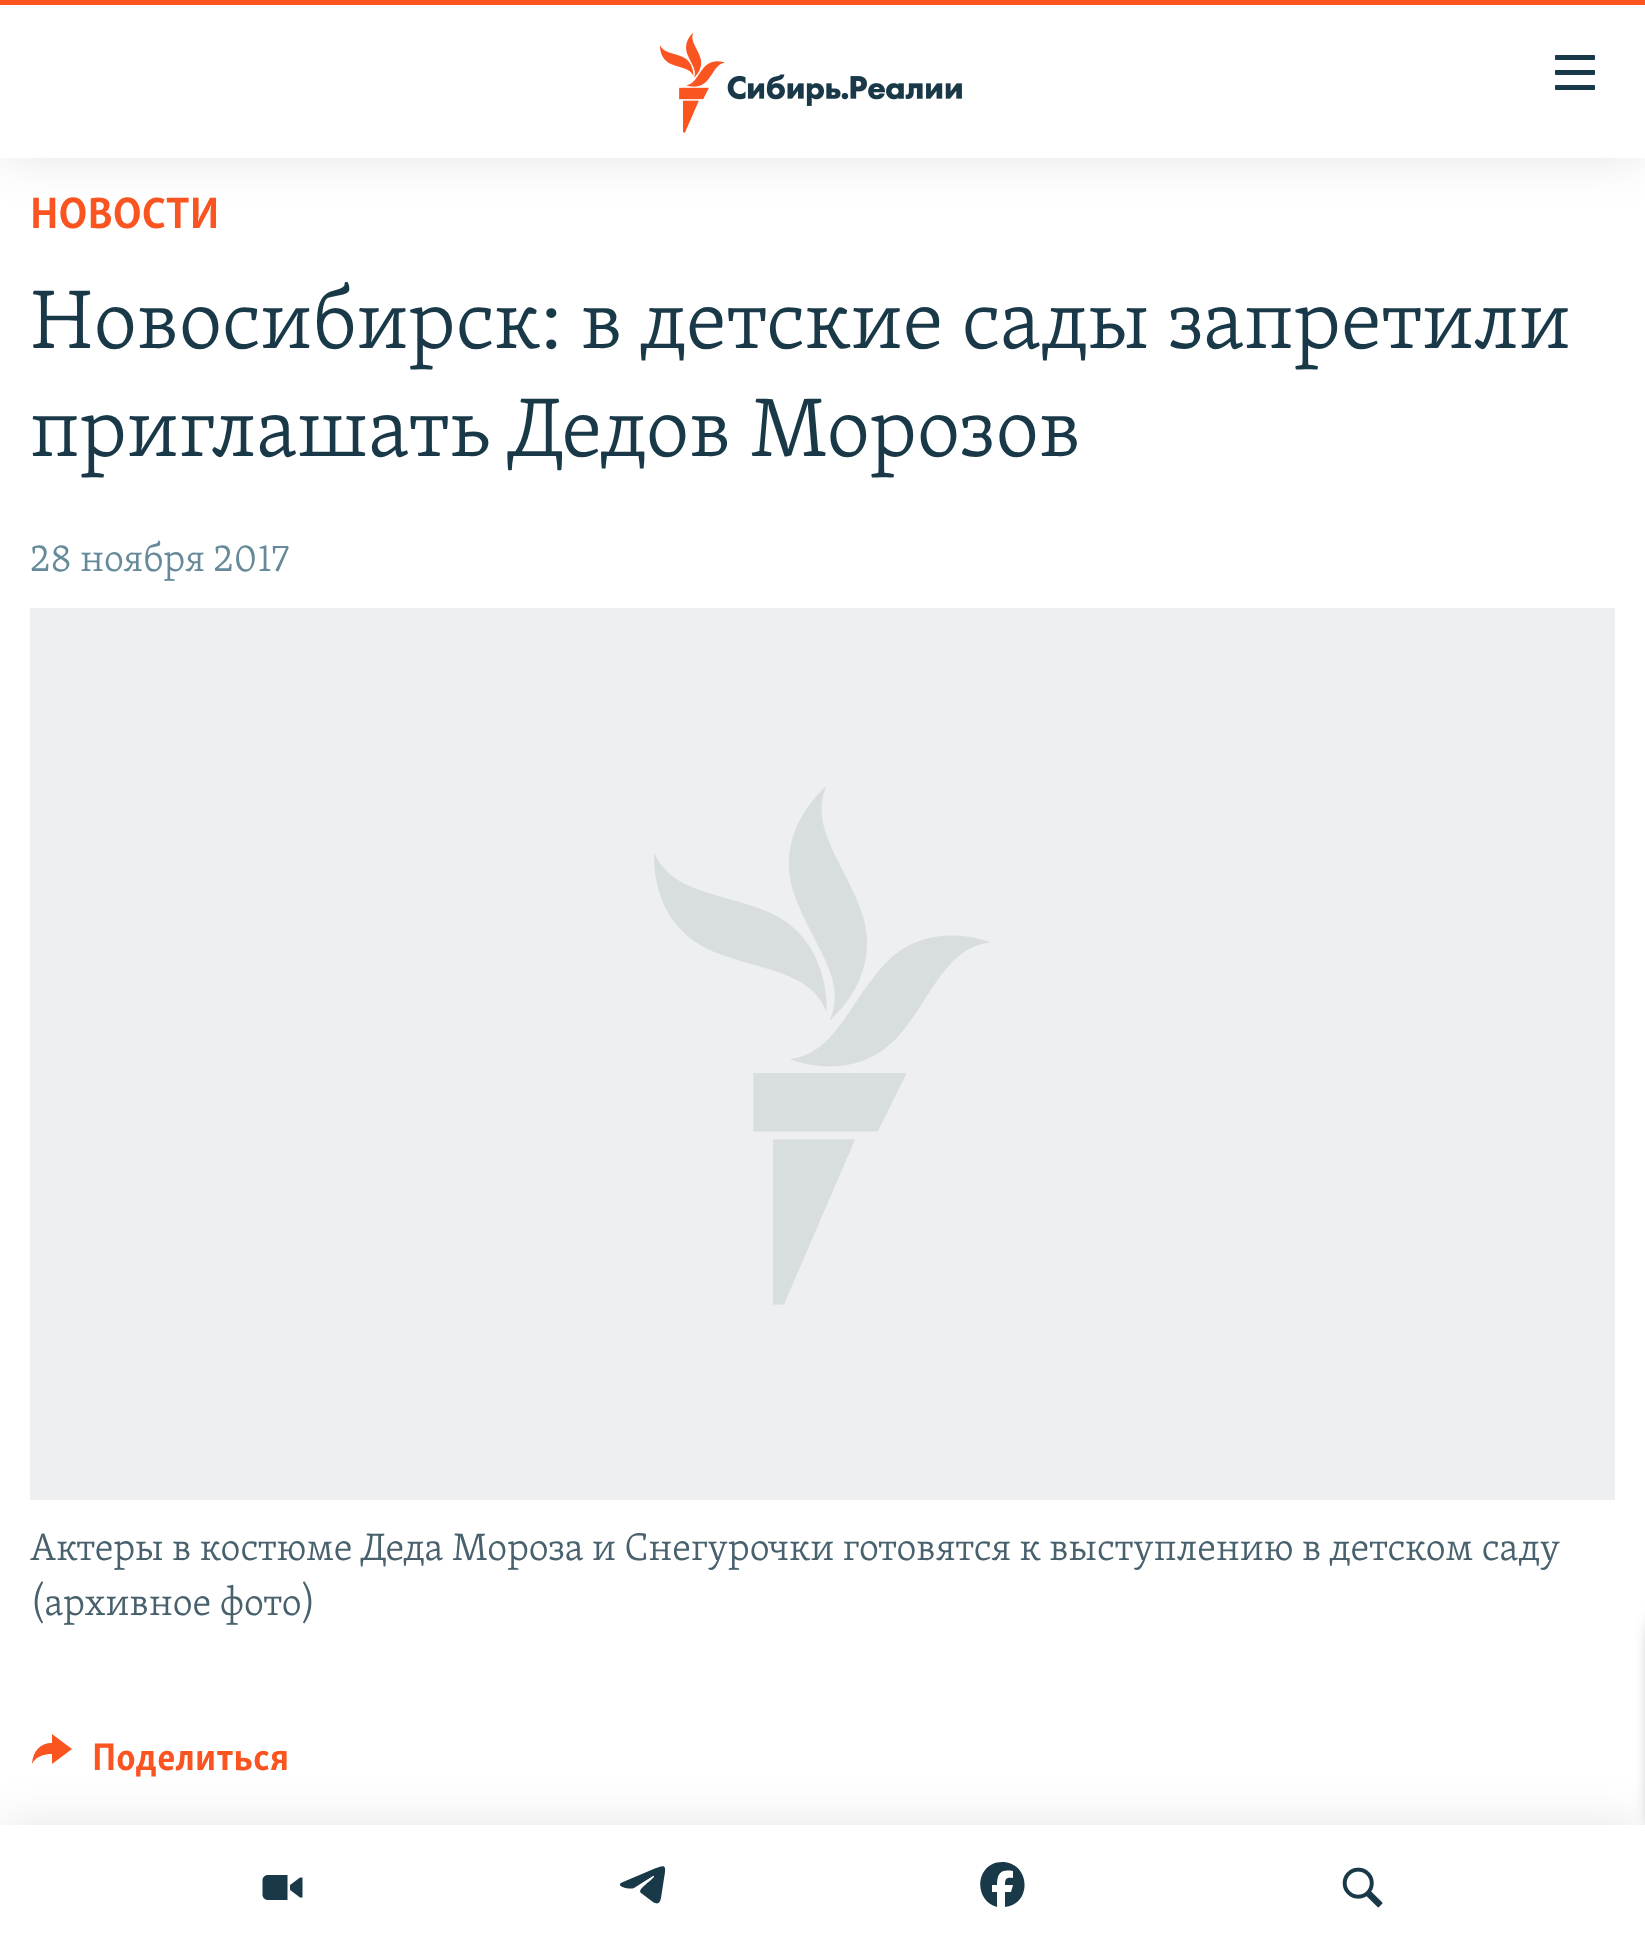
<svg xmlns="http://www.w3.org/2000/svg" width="1645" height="1950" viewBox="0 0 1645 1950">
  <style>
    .t1 { font: bold 45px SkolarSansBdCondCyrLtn; fill: #fa5420; }
    .t2 { font: 300 85.5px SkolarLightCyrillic; fill: #1a3948; }
    .t3 { font: 300 39.4px SkolarLightCyrillic; fill: #678a9b; }
    .t4 { font: 300 39.4px SkolarLightCyrillic; fill: #48616d; }
    .t5 { font: bold 39.4px SkolarSansBdCondCyrLtn; fill: #fa5420; }
  </style>
  <rect width="100%" height="100%" fill="#fff"/>
  <rect x="0" y="0" width="1645" height="158" fill="#0000001a" filter="blur(25px)"/>
  <rect x="0" y="5" width="1645" height="153" fill="#fff"/>
  <rect x="0" y="0" width="1645" height="5" fill="#fa5420"/>
  <image x="660" y="33" width="302" height="100" href="images/1.png"/>
  <image x="1555" y="55" width="40" height="35" href="images/2.png"/>
  <path d="M32 1764C33 1751 40 1743 52 1743V1734L72 1749L52 1764V1754C45 1754 36 1756 32 1764Z" fill="#fa5420"/>
  <rect x="0" y="1825" width="1645" height="125" fill="#0000001a" filter="blur(25px)"/>
  <rect x="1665" y="1623" width="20" height="202" rx="2.5" fill="#000000d9" filter="blur(12.5px)"/>
  <rect x="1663" y="1623" width="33" height="202" rx="13" fill="#000000d9" filter="blur(12.5px)"/>
  <rect x="0" y="1825" width="1645" height="125" fill="#fff"/>
  <image x="262" y="1875" width="41" height="25" href="images/3.png"/>
  <path d="M623 1882L656 1868C662 1866 666 1864 665 1872L661 1898C660 1903 658 1905 653 1902L641 1893C636 1889 655 1879 654 1876H653L634 1888C630 1890 613 1886 623 1882Z" fill="#1a3948"/>
  <path d="M1002 1862C976 1862 972 1900 997 1907V1892H992V1885H997C997 1873 1001 1869 1013 1871V1878C1006 1877 1005 1879 1005 1885H1013L1011 1892H1005V1907C1033 1904 1030 1862 1002 1862Z" fill="#1a3948"/>
  <image x="1342" y="1867" width="41" height="41" href="images/4.png"/>
  <text x="30" y="228" class="t1">НОВОСТИ</text>
  <text x="30" y="348" class="t2">Новосибирск: в детские сады запретили</text>
  <text x="30" y="456" class="t2">приглашать Дедов Морозов</text>
  <text x="30" y="571" class="t3">28 ноября 2017</text>
  <rect x="30" y="608" width="1585" height="892" fill="#edeff0"/>
  <image x="654" y="787" width="336" height="518" href="images/5.png"/>
  <text x="30" y="1560" class="t4">Актеры в костюме Деда Мороза и Снегурочки готовятся к выступлению в детском саду</text>
  <text x="30" y="1615" class="t4">(архивное фото)</text>
  <text x="92" y="1770" class="t5">Поделиться</text>
</svg>
